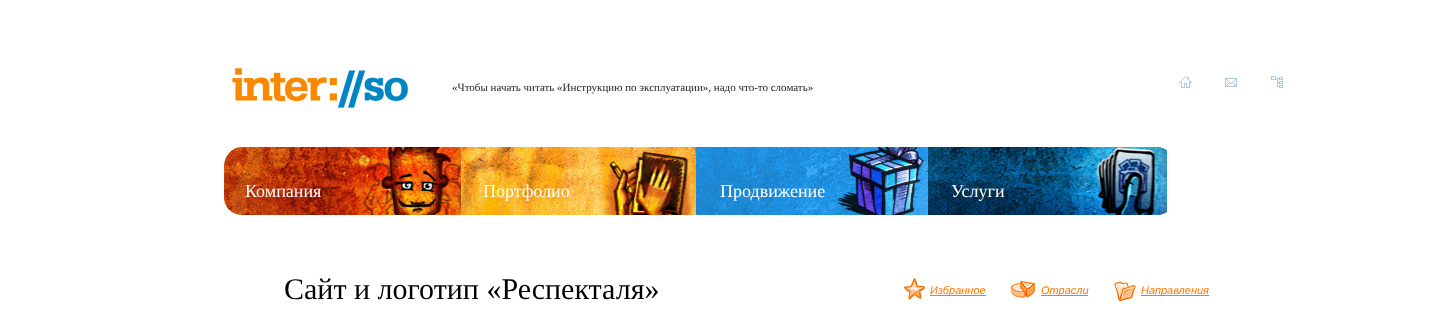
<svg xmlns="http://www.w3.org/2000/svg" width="1449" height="331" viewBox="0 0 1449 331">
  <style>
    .t1 { font: 11px Liberation Serif; fill: #242424; }
    .t2 { font: 18px Liberation Serif; fill: #fff; }
    .t3 { font: 30px Liberation Serif; fill: #000; }
    .t4 { font: italic 11px Liberation Sans; fill: #ff7601; }
  </style>
  <rect width="100%" height="100%" fill="#fff"/>
  <image x="232" y="68" width="176" height="40" href="images/1.png"/>
  <text x="452" y="91" class="t1">«Чтобы начать читать «Инструкцию по эксплуатации», надо что-то сломать»</text>
  <image x="1179" y="76" width="13" height="12" href="images/2.png"/>
  <image x="1225" y="78" width="12" height="9" href="images/3.png"/>
  <image x="1271" y="76" width="12" height="12" href="images/4.png"/>
  <image x="224" y="147" width="237" height="68" href="images/5.png"/>
  <text x="245" y="197" class="t2">Компания</text>
  <image x="461" y="147" width="235" height="68" href="images/6.png"/>
  <text x="483" y="197" class="t2">Портфолио</text>
  <image x="696" y="147" width="232" height="68" href="images/7.png"/>
  <text x="720" y="197" class="t2">Продвижение</text>
  <image x="928" y="147" width="239" height="68" href="images/8.png"/>
  <text x="951" y="197" class="t2">Услуги</text>
  <text x="284" y="299" class="t3">Сайт и логотип «Респекталя»</text>
  <image x="903" y="278" width="23" height="23" href="images/9.png"/>
  <rect x="930" y="295" width="56" height="1" fill="#ff7601"/>
  <text x="930" y="294" class="t4">Избранное</text>
  <image x="1011" y="281" width="24" height="17" href="images/10.png"/>
  <rect x="1041" y="295" width="47" height="1" fill="#ff7601"/>
  <text x="1041" y="294" class="t4">Отрасли</text>
  <image x="1114" y="281" width="22" height="20" href="images/11.png"/>
  <rect x="1141" y="295" width="68" height="1" fill="#ff7601"/>
  <text x="1141" y="294" class="t4">Направления</text>
</svg>
